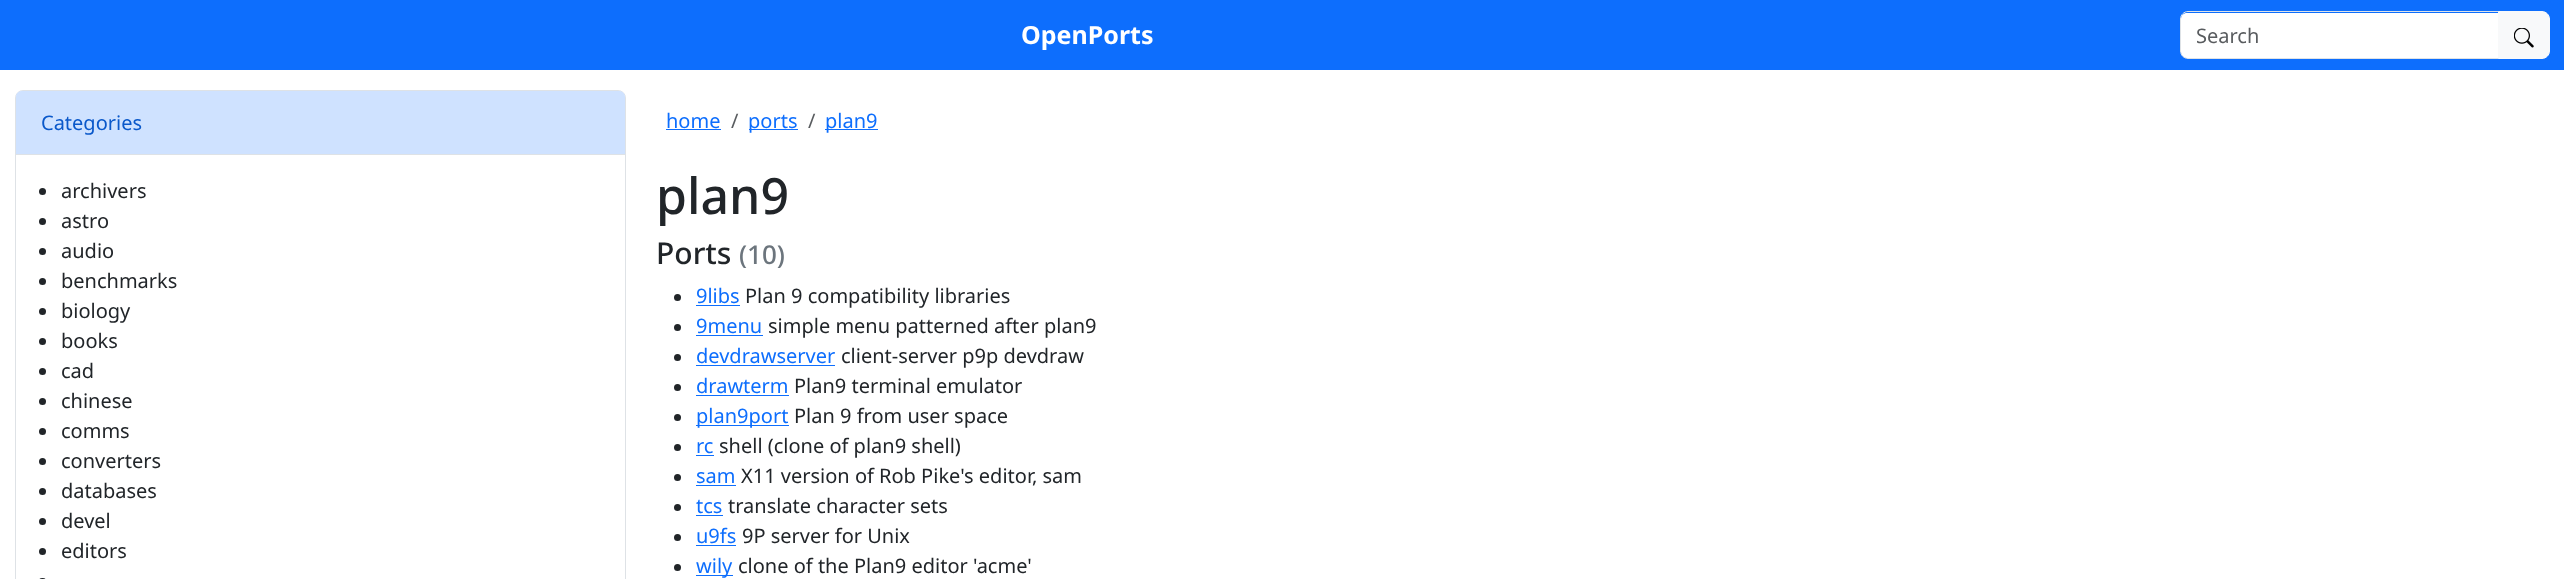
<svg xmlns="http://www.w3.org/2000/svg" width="2564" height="579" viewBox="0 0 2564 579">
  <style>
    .t1 { font: bold 25px Noto Sans; fill: #fff; }
    .t2 { font: 20px Noto Sans; fill: #595c5f; }
    .t3 { font: 20px Noto Sans; fill: #0a58ca; }
    .t4 { font: 20px Noto Sans; fill: #212529; }
    .t5 { font: 20px Noto Sans; fill: #0d6efd; }
    .t6 { font: 500 50px Noto Sans; fill: #212529; }
    .t7 { font: 500 30px Noto Sans; fill: #212529; }
    .t8 { font: 500 26px Noto Sans; fill: #6c757d; }
  </style>
  <rect width="100%" height="100%" fill="#fff"/>
  <rect x="0" y="0" width="2564" height="70" fill="#0d6efd"/>
  <text x="1021" y="44" class="t1">OpenPorts</text>
  <path d="M2187 13H2498V58H2187C2183.5 58 2181 55.5 2181 52V19C2181 15.5 2183.5 13 2187 13Z" fill="#fff"/>
  <path d="M2188 11.5H2498.5V58.5H2188C2184 58.5 2180.5 55 2180.5 51V19C2180.5 15 2184 11.5 2188 11.5Z" fill="none" stroke="#dee2e6"/>
  <text x="2196" y="43" class="t2">Search</text>
  <path d="M2498.5 11.5H2542C2546 11.5 2549.5 15 2549.5 19V51C2549.5 55 2546 58.5 2542 58.5H2498.5Z" fill="#f8f9fa" stroke="#f8f9fa"/>
  <image x="2514" y="28" width="20" height="20" href="images/1.png"/>
  <rect x="15.5" y="90.5" width="610" height="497" rx="7.5" fill="none" stroke="#dee2e6"/>
  <path d="M22 91H619C622.5 91 625 93.5 625 97V155H16V97C16 93.5 18.5 91 22 91Z" fill="#cfe2ff"/>
  <rect x="16" y="154" width="609" height="1" fill="#dee2e6"/>
  <text x="41" y="130" class="t3">Categories</text>
  <circle cx="42.5" cy="191.5" r="3.5" fill="#212529"/>
  <text x="61" y="198" class="t4">archivers</text>
  <circle cx="42.5" cy="221.5" r="3.5" fill="#212529"/>
  <text x="61" y="228" class="t4">astro</text>
  <circle cx="42.5" cy="251.5" r="3.5" fill="#212529"/>
  <text x="61" y="258" class="t4">audio</text>
  <circle cx="42.5" cy="281.5" r="3.5" fill="#212529"/>
  <text x="61" y="288" class="t4">benchmarks</text>
  <circle cx="42.5" cy="311.5" r="3.5" fill="#212529"/>
  <text x="61" y="318" class="t4">biology</text>
  <circle cx="42.5" cy="341.5" r="3.5" fill="#212529"/>
  <text x="61" y="348" class="t4">books</text>
  <circle cx="42.5" cy="371.5" r="3.5" fill="#212529"/>
  <text x="61" y="378" class="t4">cad</text>
  <circle cx="42.5" cy="401.5" r="3.5" fill="#212529"/>
  <text x="61" y="408" class="t4">chinese</text>
  <circle cx="42.5" cy="431.5" r="3.5" fill="#212529"/>
  <text x="61" y="438" class="t4">comms</text>
  <circle cx="42.5" cy="461.5" r="3.5" fill="#212529"/>
  <text x="61" y="468" class="t4">converters</text>
  <circle cx="42.5" cy="491.5" r="3.5" fill="#212529"/>
  <text x="61" y="498" class="t4">databases</text>
  <circle cx="42.5" cy="521.5" r="3.5" fill="#212529"/>
  <text x="61" y="528" class="t4">devel</text>
  <circle cx="42.5" cy="551.5" r="3.5" fill="#212529"/>
  <text x="61" y="558" class="t4">editors</text>
  <rect x="39" y="578" width="7" height="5" rx="3.5" fill="#212529"/>
  <text x="666" y="128" class="t5">home</text>
  <rect x="666" y="129" width="55" height="1" fill="#0d6efd"/>
  <text x="731" y="128" class="t2">/</text>
  <rect x="749" y="129" width="49" height="1" fill="#0d6efd"/>
  <text x="748" y="128" class="t5">ports</text>
  <text x="808" y="128" class="t2">/</text>
  <rect x="825" y="129" width="53" height="1" fill="#0d6efd"/>
  <text x="825" y="128" class="t5">plan9</text>
  <text x="656" y="214" class="t6">plan9</text>
  <text x="656" y="264" class="t7">Ports</text>
  <text x="739" y="264" class="t8">(10)</text>
  <circle cx="677.5" cy="297.5" r="3.5" fill="#212529"/>
  <text x="696" y="303" class="t5">9libs</text>
  <rect x="696" y="305" width="44" height="1" fill="#0d6efd"/>
  <text x="745" y="303" class="t4">Plan 9 compatibility libraries</text>
  <circle cx="677.5" cy="327.5" r="3.5" fill="#212529"/>
  <text x="696" y="333" class="t5">9menu</text>
  <rect x="696" y="335" width="67" height="1" fill="#0d6efd"/>
  <text x="768" y="333" class="t4">simple menu patterned after plan9</text>
  <circle cx="677.5" cy="357.5" r="3.5" fill="#212529"/>
  <text x="696" y="363" class="t5">devdrawserver</text>
  <rect x="696" y="365" width="139" height="1" fill="#0d6efd"/>
  <text x="841" y="363" class="t4">client-server p9p devdraw</text>
  <circle cx="677.5" cy="387.5" r="3.5" fill="#212529"/>
  <text x="696" y="393" class="t5">drawterm</text>
  <rect x="696" y="395" width="93" height="1" fill="#0d6efd"/>
  <text x="794" y="393" class="t4">Plan9 terminal emulator</text>
  <circle cx="677.5" cy="417.5" r="3.5" fill="#212529"/>
  <rect x="696" y="425" width="93" height="1" fill="#0d6efd"/>
  <text x="696" y="423" class="t5">plan9port</text>
  <text x="794" y="423" class="t4">Plan 9 from user space</text>
  <circle cx="677.5" cy="447.5" r="3.5" fill="#212529"/>
  <text x="696" y="453" class="t5">rc</text>
  <rect x="696" y="455" width="18" height="1" fill="#0d6efd"/>
  <text x="719" y="453" class="t4">shell (clone of plan9 shell)</text>
  <circle cx="677.5" cy="477.5" r="3.5" fill="#212529"/>
  <text x="696" y="483" class="t5">sam</text>
  <rect x="696" y="485" width="40" height="1" fill="#0d6efd"/>
  <text x="741" y="483" class="t4">X11 version of Rob Pike's editor, sam</text>
  <circle cx="677.5" cy="507.5" r="3.5" fill="#212529"/>
  <text x="696" y="513" class="t5">tcs</text>
  <rect x="696" y="515" width="27" height="1" fill="#0d6efd"/>
  <text x="728" y="513" class="t4">translate character sets</text>
  <circle cx="677.5" cy="537.5" r="3.5" fill="#212529"/>
  <text x="696" y="543" class="t5">u9fs</text>
  <rect x="696" y="545" width="40" height="1" fill="#0d6efd"/>
  <text x="742" y="543" class="t4">9P server for Unix</text>
  <circle cx="677.5" cy="567.5" r="3.5" fill="#212529"/>
  <rect x="696" y="575" width="37" height="1" fill="#0d6efd"/>
  <text x="696" y="573" class="t5">wily</text>
  <text x="738" y="573" class="t4">clone of the Plan9 editor 'acme'</text>
</svg>
